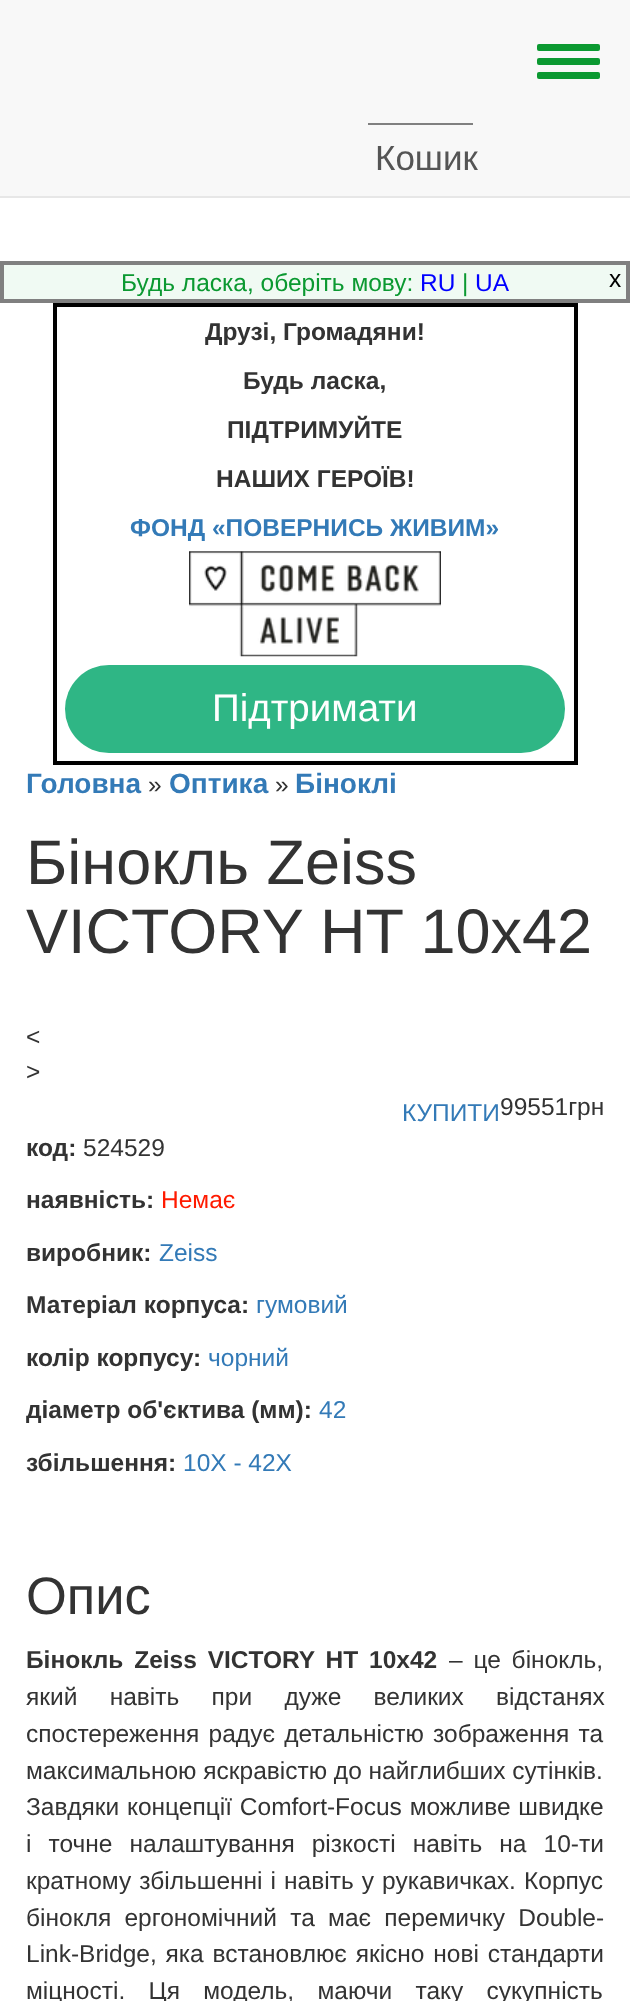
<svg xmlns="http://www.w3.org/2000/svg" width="630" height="2001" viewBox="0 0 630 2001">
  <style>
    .t1 { font: 35px Liberation Sans; fill: #555; }
    .t2 { font: 24.5px Liberation Sans; fill: #0b9931; }
    .t3 { font: 24.5px Liberation Sans; fill: #00f; }
    .t4 { font: 24.5px Liberation Sans; fill: #000; }
    .t5 { font: bold 24.5px Liberation Sans; fill: #333; }
    .t6 { font: bold 24.5px Liberation Sans; fill: #337ab7; }
    .t7 { font: 38.5px Liberation Sans; fill: #fff; }
    .t8 { font: bold 28px Liberation Sans; fill: #337ab7; }
    .t9 { font: 24.5px Liberation Sans; fill: #333; }
    .t10 { font: 63px Liberation Sans; fill: #333; }
    .t11 { font: 24.5px Liberation Sans; fill: #337ab7; }
    .t12 { font: 24.5px Liberation Sans; fill: #ff1a00; }
    .t13 { font: 52.5px Liberation Sans; fill: #333; }
  </style>
  <rect width="100%" height="100%" fill="#fff"/>
  <rect x="0" y="0" width="630" height="196" fill="#f8f8f8"/>
  <rect x="0" y="196" width="630" height="2" fill="#e7e7e7"/>
  <rect x="537" y="44" width="63" height="7" rx="2" fill="#0b9931"/>
  <rect x="537" y="58" width="63" height="7" rx="2" fill="#0b9931"/>
  <rect x="537" y="72" width="63" height="7" rx="2" fill="#0b9931"/>
  <rect x="368" y="123" width="105" height="2" fill="#808080"/>
  <text x="375" y="170" class="t1">Кошик</text>
  <rect x="2" y="263" width="626" height="38" fill="#f0faf3" stroke="#808080" stroke-width="4"/>
  <text x="121" y="291" class="t2">Будь ласка, оберіть мову:</text>
  <text x="420" y="291" class="t3">RU</text>
  <text x="462" y="291" class="t2">|</text>
  <text x="475" y="291" class="t3">UA</text>
  <text x="609" y="287" class="t4">x</text>
  <rect x="55" y="305" width="521" height="458" fill="none" stroke="#000" stroke-width="4"/>
  <text x="205" y="340" class="t5">Друзі, Громадяни!</text>
  <text x="243" y="389" class="t5">Будь ласка,</text>
  <text x="227" y="438" class="t5">ПІДТРИМУЙТЕ</text>
  <text x="216" y="487" class="t5">НАШИХ ГЕРОЇВ!</text>
  <text x="130" y="536" class="t6">ФОНД «ПОВЕРНИСЬ ЖИВИМ»</text>
  <image x="189" y="551" width="252" height="106" href="images/1.png"/>
  <rect x="65" y="665" width="500" height="88" rx="44" fill="#2fb685"/>
  <text x="212" y="721" class="t7">Підтримати</text>
  <text x="26" y="793" class="t8">Головна</text>
  <text x="148" y="793" class="t9">»</text>
  <text x="169" y="793" class="t8">Оптика</text>
  <text x="275" y="793" class="t9">»</text>
  <text x="295" y="793" class="t8">Біноклі</text>
  <text x="26" y="884" class="t10">Бінокль Zeiss</text>
  <text x="26" y="953" class="t10">VICTORY HT 10х42</text>
  <text x="26" y="1045" class="t9">&lt;</text>
  <text x="26" y="1080" class="t9">&gt;</text>
  <text x="402" y="1121" class="t11">КУПИТИ</text>
  <text x="500" y="1115" class="t9">99551грн</text>
  <text x="26" y="1156" class="t5">код:</text>
  <text x="83" y="1156" class="t9">524529</text>
  <text x="26" y="1208" class="t5">наявність:</text>
  <text x="161" y="1208" class="t12">Немає</text>
  <text x="26" y="1261" class="t5">виробник:</text>
  <text x="159" y="1261" class="t11">Zeiss</text>
  <text x="26" y="1313" class="t5">Матеріал корпуса:</text>
  <text x="256" y="1313" class="t11">гумовий</text>
  <text x="26" y="1366" class="t5">колір корпусу:</text>
  <text x="208" y="1366" class="t11">чорний</text>
  <text x="26" y="1418" class="t5">діаметр об'єктива (мм):</text>
  <text x="319" y="1418" class="t11">42</text>
  <text x="26" y="1471" class="t5">збільшення:</text>
  <text x="183" y="1471" class="t11">10Х - 42Х</text>
  <text x="26" y="1614" class="t13">Опис</text>
  <text x="26" y="1668" word-spacing="4" class="t5">Бінокль Zeiss VICTORY HT 10х42</text>
  <text x="449" y="1668" word-spacing="4" class="t9">– це бінокль,</text>
  <text x="26" y="1705" word-spacing="25.5" class="t9">який навіть при дуже великих відстанях</text>
  <text x="26" y="1742" word-spacing="2.5" class="t9">спостереження радує детальністю зображення та</text>
  <text x="26" y="1779" class="t9">максимальною яскравістю до найглибших сутінків.</text>
  <text x="26" y="1815" word-spacing="1" class="t9">Завдяки концепції Comfort-Focus можливе швидке</text>
  <text x="26" y="1852" word-spacing="10.25" class="t9">і точне налаштування різкості навіть на 10-ти</text>
  <text x="26" y="1889" word-spacing="1.25" class="t9">кратному збільшенні і навіть у рукавичках. Корпус</text>
  <text x="26" y="1926" word-spacing="6.5" class="t9">бінокля ергономічний та має перемичку Double-</text>
  <text x="26" y="1962" word-spacing="2" class="t9">Link-Bridge, яка встановлює якісно нові стандарти</text>
  <text x="26" y="1999" word-spacing="16.5" class="t9">міцності. Ця модель, маючи таку сукупність</text>
</svg>
